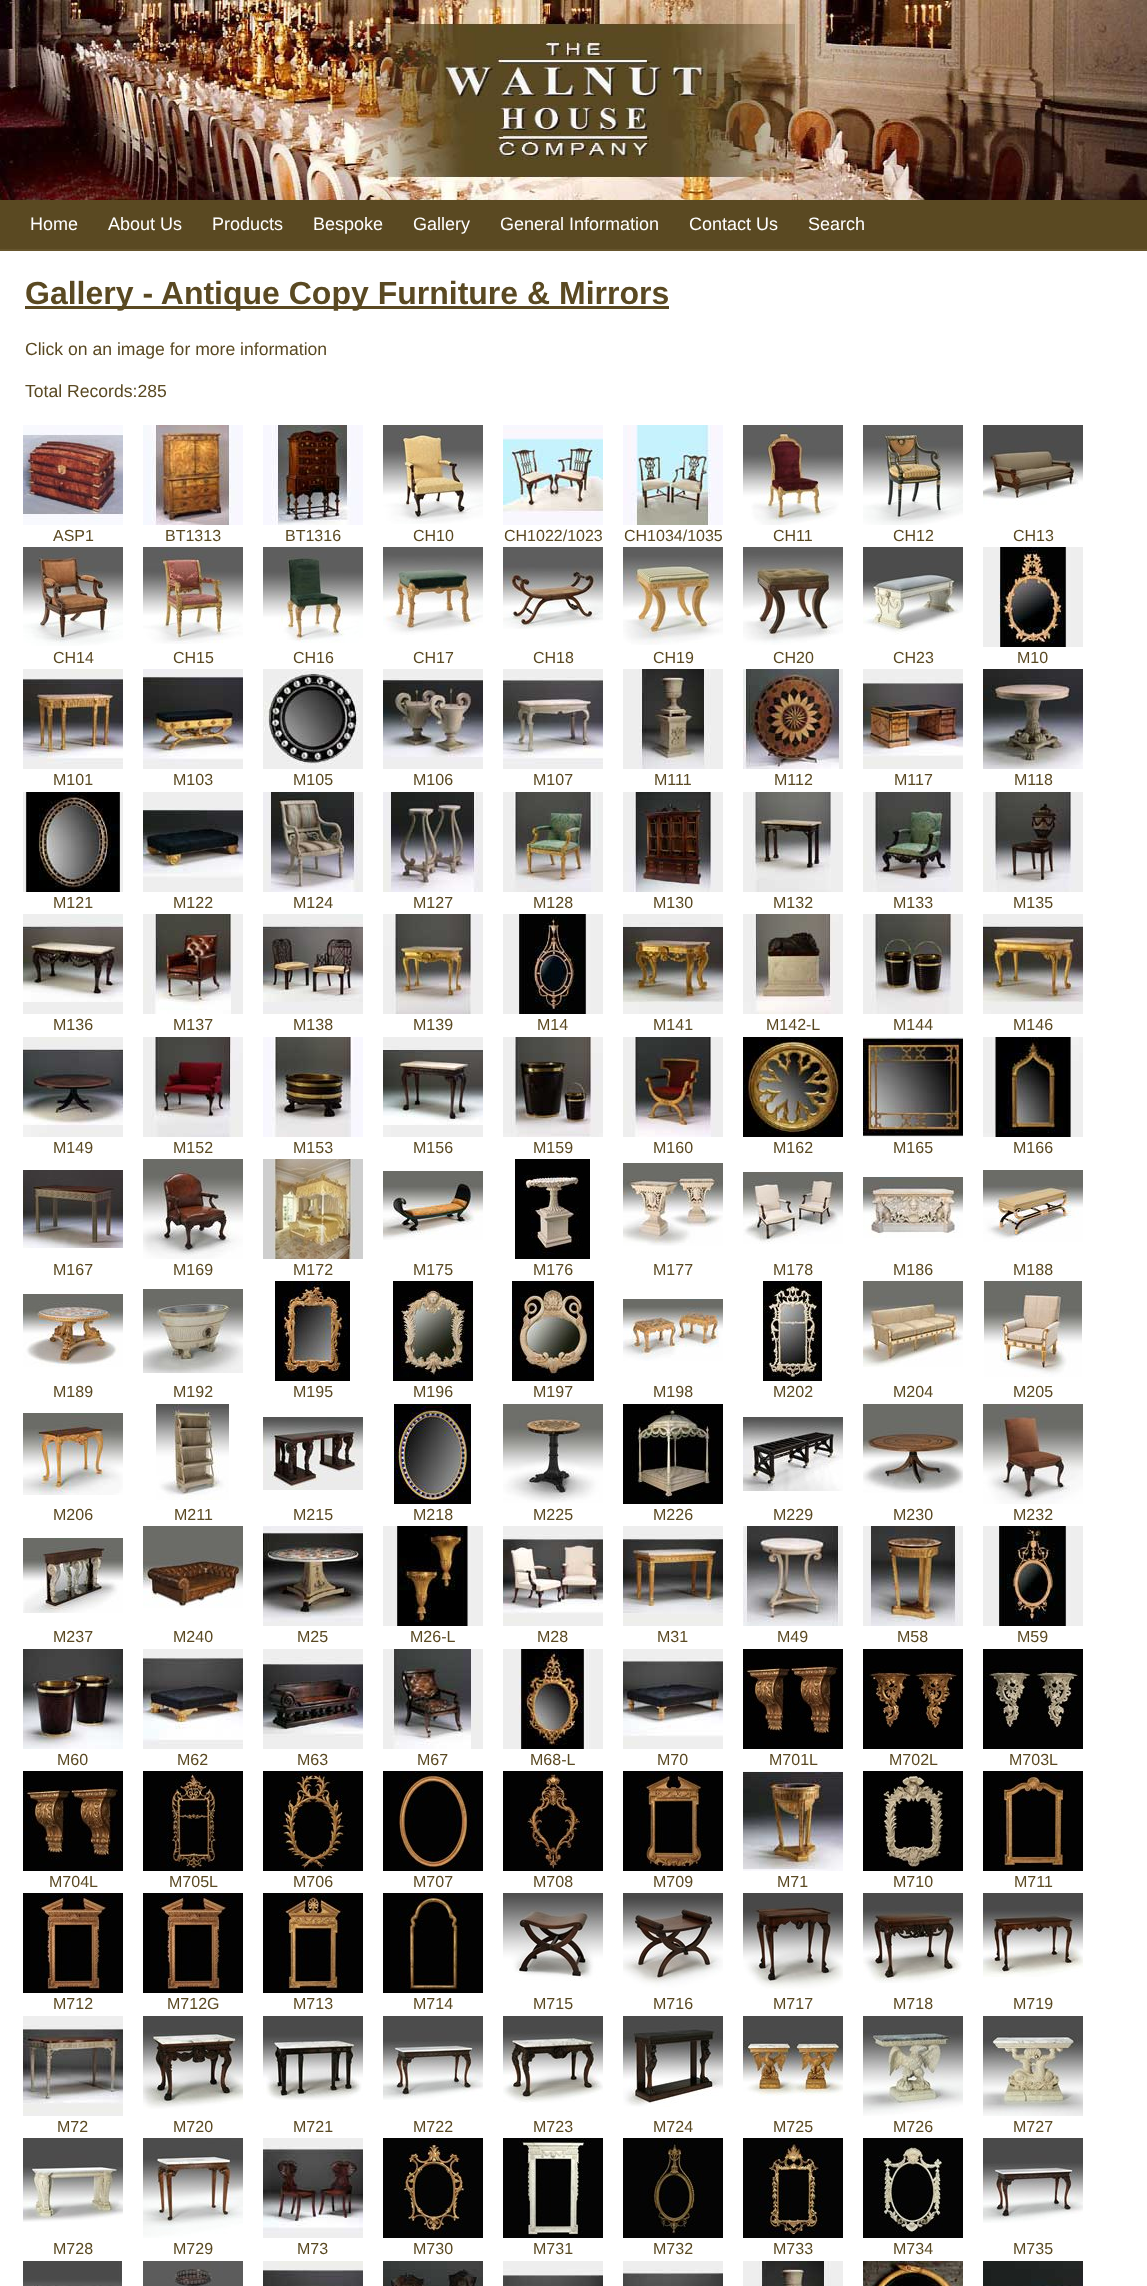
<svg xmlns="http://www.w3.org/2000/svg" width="1147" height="2286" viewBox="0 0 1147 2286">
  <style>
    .t1 { font: 18px Liberation Sans; fill: #fff; }
    .t2 { font: bold 32px Liberation Sans; fill: #5a4922; }
    .t3 { font: 17.6px Liberation Sans; fill: #5a4922; }
    .t4 { font: 16px Liberation Sans; fill: #5a4922; }
  </style>
  <rect width="100%" height="100%" fill="#fff"/>
  <image x="0" y="0" width="1147" height="200" href="images/1.png"/>
  <rect x="0" y="200" width="1147" height="49" fill="#5a4922"/>
  <rect x="0" y="249" width="1147" height="2" fill="#66552d"/>
  <text x="30" y="230" class="t1">Home</text>
  <text x="108" y="230" class="t1">About Us</text>
  <text x="212" y="230" class="t1">Products</text>
  <text x="313" y="230" class="t1">Bespoke</text>
  <text x="413" y="230" class="t1">Gallery</text>
  <text x="500" y="230" class="t1">General Information</text>
  <text x="689" y="230" class="t1">Contact Us</text>
  <text x="808" y="230" class="t1">Search</text>
  <rect x="25" y="306" width="644" height="3" fill="#5a4922"/>
  <text x="25" y="304" class="t2">Gallery - Antique Copy Furniture &amp; Mirrors</text>
  <text x="25" y="355" class="t3">Click on an image for more information</text>
  <text x="25" y="397" class="t3">Total Records:285</text>
  <image x="23" y="425" width="100" height="100" href="images/2.png"/>
  <text x="53" y="541" class="t4">ASP1</text>
  <image x="143" y="425" width="100" height="100" href="images/3.png"/>
  <text x="165" y="541" class="t4">BT1313</text>
  <image x="263" y="425" width="100" height="100" href="images/4.png"/>
  <text x="285" y="541" class="t4">BT1316</text>
  <image x="383" y="425" width="100" height="99" href="images/5.png"/>
  <text x="413" y="541" class="t4">CH10</text>
  <image x="503" y="425" width="100" height="100" href="images/6.png"/>
  <text x="504" y="541" class="t4">CH1022/1023</text>
  <image x="623" y="425" width="100" height="100" href="images/7.png"/>
  <text x="624" y="541" class="t4">CH1034/1035</text>
  <image x="743" y="425" width="100" height="100" href="images/8.png"/>
  <text x="773" y="541" class="t4">CH11</text>
  <image x="863" y="425" width="100" height="100" href="images/9.png"/>
  <text x="893" y="541" class="t4">CH12</text>
  <image x="983" y="425" width="100" height="80" href="images/10.png"/>
  <text x="1013" y="541" class="t4">CH13</text>
  <image x="23" y="547" width="100" height="99" href="images/11.png"/>
  <text x="53" y="663" class="t4">CH14</text>
  <image x="143" y="547" width="100" height="97" href="images/12.png"/>
  <text x="173" y="663" class="t4">CH15</text>
  <image x="263" y="547" width="100" height="96" href="images/13.png"/>
  <text x="293" y="663" class="t4">CH16</text>
  <image x="383" y="547" width="100" height="88" href="images/14.png"/>
  <text x="413" y="663" class="t4">CH17</text>
  <image x="503" y="547" width="100" height="82" href="images/15.png"/>
  <text x="533" y="663" class="t4">CH18</text>
  <image x="623" y="547" width="100" height="98" href="images/16.png"/>
  <text x="653" y="663" class="t4">CH19</text>
  <image x="743" y="547" width="100" height="98" href="images/17.png"/>
  <text x="773" y="663" class="t4">CH20</text>
  <image x="863" y="547" width="100" height="88" href="images/18.png"/>
  <text x="893" y="663" class="t4">CH23</text>
  <image x="983" y="547" width="100" height="100" href="images/19.png"/>
  <text x="1017" y="663" class="t4">M10</text>
  <image x="23" y="669" width="100" height="100" href="images/20.png"/>
  <text x="53" y="785" class="t4">M101</text>
  <image x="143" y="669" width="100" height="100" href="images/21.png"/>
  <text x="173" y="785" class="t4">M103</text>
  <image x="263" y="669" width="100" height="100" href="images/22.png"/>
  <text x="293" y="785" class="t4">M105</text>
  <image x="383" y="669" width="100" height="100" href="images/23.png"/>
  <text x="413" y="785" class="t4">M106</text>
  <image x="503" y="669" width="100" height="100" href="images/24.png"/>
  <text x="533" y="785" class="t4">M107</text>
  <image x="623" y="669" width="100" height="100" href="images/25.png"/>
  <text x="654" y="785" class="t4">M111</text>
  <image x="743" y="669" width="100" height="100" href="images/26.png"/>
  <text x="774" y="785" class="t4">M112</text>
  <image x="863" y="669" width="100" height="100" href="images/27.png"/>
  <text x="894" y="785" class="t4">M117</text>
  <image x="983" y="669" width="100" height="100" href="images/28.png"/>
  <text x="1014" y="785" class="t4">M118</text>
  <image x="23" y="792" width="100" height="100" href="images/29.png"/>
  <text x="53" y="908" class="t4">M121</text>
  <image x="143" y="792" width="100" height="100" href="images/30.png"/>
  <text x="173" y="908" class="t4">M122</text>
  <image x="263" y="792" width="100" height="100" href="images/31.png"/>
  <text x="293" y="908" class="t4">M124</text>
  <image x="383" y="792" width="100" height="100" href="images/32.png"/>
  <text x="413" y="908" class="t4">M127</text>
  <image x="503" y="792" width="100" height="100" href="images/33.png"/>
  <text x="533" y="908" class="t4">M128</text>
  <image x="623" y="792" width="100" height="100" href="images/34.png"/>
  <text x="653" y="908" class="t4">M130</text>
  <image x="743" y="792" width="100" height="100" href="images/35.png"/>
  <text x="773" y="908" class="t4">M132</text>
  <image x="863" y="792" width="100" height="100" href="images/36.png"/>
  <text x="893" y="908" class="t4">M133</text>
  <image x="983" y="792" width="100" height="100" href="images/37.png"/>
  <text x="1013" y="908" class="t4">M135</text>
  <image x="23" y="914" width="100" height="100" href="images/38.png"/>
  <text x="53" y="1030" class="t4">M136</text>
  <image x="143" y="914" width="100" height="100" href="images/39.png"/>
  <text x="173" y="1030" class="t4">M137</text>
  <image x="263" y="914" width="100" height="100" href="images/40.png"/>
  <text x="293" y="1030" class="t4">M138</text>
  <image x="383" y="914" width="100" height="100" href="images/41.png"/>
  <text x="413" y="1030" class="t4">M139</text>
  <image x="503" y="914" width="100" height="100" href="images/42.png"/>
  <text x="537" y="1030" class="t4">M14</text>
  <image x="623" y="914" width="100" height="100" href="images/43.png"/>
  <text x="653" y="1030" class="t4">M141</text>
  <image x="743" y="914" width="100" height="100" href="images/44.png"/>
  <text x="766" y="1030" class="t4">M142-L</text>
  <image x="863" y="914" width="100" height="100" href="images/45.png"/>
  <text x="893" y="1030" class="t4">M144</text>
  <image x="983" y="914" width="100" height="100" href="images/46.png"/>
  <text x="1013" y="1030" class="t4">M146</text>
  <image x="23" y="1037" width="100" height="100" href="images/47.png"/>
  <text x="53" y="1153" class="t4">M149</text>
  <image x="143" y="1037" width="100" height="100" href="images/48.png"/>
  <text x="173" y="1153" class="t4">M152</text>
  <image x="263" y="1037" width="100" height="100" href="images/49.png"/>
  <text x="293" y="1153" class="t4">M153</text>
  <image x="383" y="1037" width="100" height="100" href="images/50.png"/>
  <text x="413" y="1153" class="t4">M156</text>
  <image x="503" y="1037" width="100" height="100" href="images/51.png"/>
  <text x="533" y="1153" class="t4">M159</text>
  <image x="623" y="1037" width="100" height="100" href="images/52.png"/>
  <text x="653" y="1153" class="t4">M160</text>
  <image x="743" y="1037" width="100" height="100" href="images/53.png"/>
  <text x="773" y="1153" class="t4">M162</text>
  <image x="863" y="1037" width="100" height="100" href="images/54.png"/>
  <text x="893" y="1153" class="t4">M165</text>
  <image x="983" y="1037" width="100" height="100" href="images/55.png"/>
  <text x="1013" y="1153" class="t4">M166</text>
  <image x="23" y="1170" width="100" height="78" href="images/56.png"/>
  <text x="53" y="1275" class="t4">M167</text>
  <image x="143" y="1159" width="100" height="100" href="images/57.png"/>
  <text x="173" y="1275" class="t4">M169</text>
  <image x="263" y="1159" width="100" height="100" href="images/58.png"/>
  <text x="293" y="1275" class="t4">M172</text>
  <image x="383" y="1171" width="100" height="69" href="images/59.png"/>
  <text x="413" y="1275" class="t4">M175</text>
  <image x="515" y="1159" width="75" height="100" href="images/60.png"/>
  <text x="533" y="1275" class="t4">M176</text>
  <image x="623" y="1163" width="100" height="83" href="images/61.png"/>
  <text x="653" y="1275" class="t4">M177</text>
  <image x="743" y="1172" width="100" height="72" href="images/62.png"/>
  <text x="773" y="1275" class="t4">M178</text>
  <image x="863" y="1177" width="100" height="61" href="images/63.png"/>
  <text x="893" y="1275" class="t4">M186</text>
  <image x="983" y="1170" width="100" height="72" href="images/64.png"/>
  <text x="1013" y="1275" class="t4">M188</text>
  <image x="23" y="1294" width="100" height="73" href="images/65.png"/>
  <text x="53" y="1397" class="t4">M189</text>
  <image x="143" y="1289" width="100" height="84" href="images/66.png"/>
  <text x="173" y="1397" class="t4">M192</text>
  <image x="275" y="1281" width="75" height="100" href="images/67.png"/>
  <text x="293" y="1397" class="t4">M195</text>
  <image x="393" y="1281" width="80" height="100" href="images/68.png"/>
  <text x="413" y="1397" class="t4">M196</text>
  <image x="512" y="1281" width="82" height="100" href="images/69.png"/>
  <text x="533" y="1397" class="t4">M197</text>
  <image x="623" y="1299" width="100" height="62" href="images/70.png"/>
  <text x="653" y="1397" class="t4">M198</text>
  <image x="763" y="1281" width="59" height="100" href="images/71.png"/>
  <text x="773" y="1397" class="t4">M202</text>
  <image x="863" y="1281" width="100" height="86" href="images/72.png"/>
  <text x="893" y="1397" class="t4">M204</text>
  <image x="984" y="1281" width="98" height="96" href="images/73.png"/>
  <text x="1013" y="1397" class="t4">M205</text>
  <image x="23" y="1413" width="100" height="82" href="images/74.png"/>
  <text x="53" y="1520" class="t4">M206</text>
  <image x="156" y="1404" width="73" height="96" href="images/75.png"/>
  <text x="174" y="1520" class="t4">M211</text>
  <image x="263" y="1417" width="100" height="73" href="images/76.png"/>
  <text x="293" y="1520" class="t4">M215</text>
  <image x="394" y="1404" width="77" height="100" href="images/77.png"/>
  <text x="413" y="1520" class="t4">M218</text>
  <image x="503" y="1404" width="100" height="99" href="images/78.png"/>
  <text x="533" y="1520" class="t4">M225</text>
  <image x="623" y="1404" width="100" height="100" href="images/79.png"/>
  <text x="653" y="1520" class="t4">M226</text>
  <image x="743" y="1417" width="100" height="74" href="images/80.png"/>
  <text x="773" y="1520" class="t4">M229</text>
  <image x="863" y="1404" width="100" height="89" href="images/81.png"/>
  <text x="893" y="1520" class="t4">M230</text>
  <image x="983" y="1404" width="100" height="100" href="images/82.png"/>
  <text x="1013" y="1520" class="t4">M232</text>
  <image x="23" y="1538" width="100" height="75" href="images/83.png"/>
  <text x="53" y="1642" class="t4">M237</text>
  <image x="143" y="1526" width="100" height="82" href="images/84.png"/>
  <text x="173" y="1642" class="t4">M240</text>
  <image x="263" y="1526" width="100" height="100" href="images/85.png"/>
  <text x="297" y="1642" class="t4">M25</text>
  <image x="383" y="1526" width="100" height="100" href="images/86.png"/>
  <text x="410" y="1642" class="t4">M26-L</text>
  <image x="503" y="1526" width="100" height="100" href="images/87.png"/>
  <text x="537" y="1642" class="t4">M28</text>
  <image x="623" y="1526" width="100" height="100" href="images/88.png"/>
  <text x="657" y="1642" class="t4">M31</text>
  <image x="743" y="1526" width="100" height="100" href="images/89.png"/>
  <text x="777" y="1642" class="t4">M49</text>
  <image x="863" y="1526" width="100" height="100" href="images/90.png"/>
  <text x="897" y="1642" class="t4">M58</text>
  <image x="983" y="1526" width="100" height="100" href="images/91.png"/>
  <text x="1017" y="1642" class="t4">M59</text>
  <image x="23" y="1649" width="100" height="100" href="images/92.png"/>
  <text x="57" y="1765" class="t4">M60</text>
  <image x="143" y="1649" width="100" height="100" href="images/93.png"/>
  <text x="177" y="1765" class="t4">M62</text>
  <image x="263" y="1649" width="100" height="100" href="images/94.png"/>
  <text x="297" y="1765" class="t4">M63</text>
  <image x="383" y="1649" width="100" height="100" href="images/95.png"/>
  <text x="417" y="1765" class="t4">M67</text>
  <image x="503" y="1649" width="100" height="100" href="images/96.png"/>
  <text x="530" y="1765" class="t4">M68-L</text>
  <image x="623" y="1649" width="100" height="100" href="images/97.png"/>
  <text x="657" y="1765" class="t4">M70</text>
  <image x="743" y="1649" width="100" height="100" href="images/98.png"/>
  <text x="769" y="1765" class="t4">M701L</text>
  <image x="863" y="1649" width="100" height="100" href="images/99.png"/>
  <text x="889" y="1765" class="t4">M702L</text>
  <image x="983" y="1649" width="100" height="100" href="images/100.png"/>
  <text x="1009" y="1765" class="t4">M703L</text>
  <image x="23" y="1771" width="100" height="100" href="images/101.png"/>
  <text x="49" y="1887" class="t4">M704L</text>
  <image x="143" y="1771" width="100" height="100" href="images/102.png"/>
  <text x="169" y="1887" class="t4">M705L</text>
  <image x="263" y="1771" width="100" height="100" href="images/103.png"/>
  <text x="293" y="1887" class="t4">M706</text>
  <image x="383" y="1771" width="100" height="100" href="images/104.png"/>
  <text x="413" y="1887" class="t4">M707</text>
  <image x="503" y="1771" width="100" height="100" href="images/105.png"/>
  <text x="533" y="1887" class="t4">M708</text>
  <image x="623" y="1771" width="100" height="100" href="images/106.png"/>
  <text x="653" y="1887" class="t4">M709</text>
  <image x="743" y="1771" width="100" height="100" href="images/107.png"/>
  <text x="777" y="1887" class="t4">M71</text>
  <image x="863" y="1771" width="100" height="100" href="images/108.png"/>
  <text x="893" y="1887" class="t4">M710</text>
  <image x="983" y="1771" width="100" height="100" href="images/109.png"/>
  <text x="1014" y="1887" class="t4">M711</text>
  <image x="23" y="1893" width="100" height="100" href="images/110.png"/>
  <text x="53" y="2009" class="t4">M712</text>
  <image x="143" y="1893" width="100" height="100" href="images/110.png"/>
  <text x="167" y="2009" class="t4">M712G</text>
  <image x="263" y="1893" width="100" height="100" href="images/111.png"/>
  <text x="293" y="2009" class="t4">M713</text>
  <image x="383" y="1893" width="100" height="100" href="images/112.png"/>
  <text x="413" y="2009" class="t4">M714</text>
  <image x="503" y="1893" width="100" height="88" href="images/113.png"/>
  <text x="533" y="2009" class="t4">M715</text>
  <image x="623" y="1893" width="100" height="95" href="images/114.png"/>
  <text x="653" y="2009" class="t4">M716</text>
  <image x="743" y="1893" width="100" height="96" href="images/115.png"/>
  <text x="773" y="2009" class="t4">M717</text>
  <image x="863" y="1893" width="100" height="90" href="images/116.png"/>
  <text x="893" y="2009" class="t4">M718</text>
  <image x="983" y="1893" width="100" height="84" href="images/117.png"/>
  <text x="1013" y="2009" class="t4">M719</text>
  <image x="23" y="2016" width="100" height="100" href="images/118.png"/>
  <text x="57" y="2132" class="t4">M72</text>
  <image x="143" y="2016" width="100" height="93" href="images/119.png"/>
  <text x="173" y="2132" class="t4">M720</text>
  <image x="263" y="2016" width="100" height="84" href="images/120.png"/>
  <text x="293" y="2132" class="t4">M721</text>
  <image x="383" y="2016" width="100" height="84" href="images/121.png"/>
  <text x="413" y="2132" class="t4">M722</text>
  <image x="503" y="2016" width="100" height="87" href="images/122.png"/>
  <text x="533" y="2132" class="t4">M723</text>
  <image x="623" y="2016" width="100" height="91" href="images/123.png"/>
  <text x="653" y="2132" class="t4">M724</text>
  <image x="743" y="2016" width="100" height="80" href="images/124.png"/>
  <text x="773" y="2132" class="t4">M725</text>
  <image x="863" y="2016" width="100" height="100" href="images/125.png"/>
  <text x="893" y="2132" class="t4">M726</text>
  <image x="983" y="2016" width="100" height="100" href="images/126.png"/>
  <text x="1013" y="2132" class="t4">M727</text>
  <image x="23" y="2138" width="100" height="84" href="images/127.png"/>
  <text x="53" y="2254" class="t4">M728</text>
  <image x="143" y="2138" width="100" height="100" href="images/128.png"/>
  <text x="173" y="2254" class="t4">M729</text>
  <image x="263" y="2138" width="100" height="100" href="images/129.png"/>
  <text x="297" y="2254" class="t4">M73</text>
  <image x="383" y="2138" width="100" height="100" href="images/130.png"/>
  <text x="413" y="2254" class="t4">M730</text>
  <image x="503" y="2138" width="100" height="100" href="images/131.png"/>
  <text x="533" y="2254" class="t4">M731</text>
  <image x="623" y="2138" width="100" height="100" href="images/132.png"/>
  <text x="653" y="2254" class="t4">M732</text>
  <image x="743" y="2138" width="100" height="100" href="images/133.png"/>
  <text x="773" y="2254" class="t4">M733</text>
  <image x="863" y="2138" width="100" height="100" href="images/134.png"/>
  <text x="893" y="2254" class="t4">M734</text>
  <image x="983" y="2138" width="100" height="85" href="images/135.png"/>
  <text x="1013" y="2254" class="t4">M735</text>
  <image x="23" y="2261" width="99" height="25" href="images/136.png"/>
  <image x="143" y="2261" width="100" height="25" href="images/137.png"/>
  <image x="263" y="2261" width="100" height="25" href="images/138.png"/>
  <image x="383" y="2261" width="100" height="25" href="images/139.png"/>
  <image x="503" y="2261" width="100" height="25" href="images/140.png"/>
  <image x="623" y="2261" width="100" height="25" href="images/141.png"/>
  <image x="743" y="2261" width="100" height="25" href="images/142.png"/>
  <image x="863" y="2261" width="100" height="25" href="images/143.png"/>
  <image x="983" y="2261" width="100" height="25" href="images/144.png"/>
</svg>
